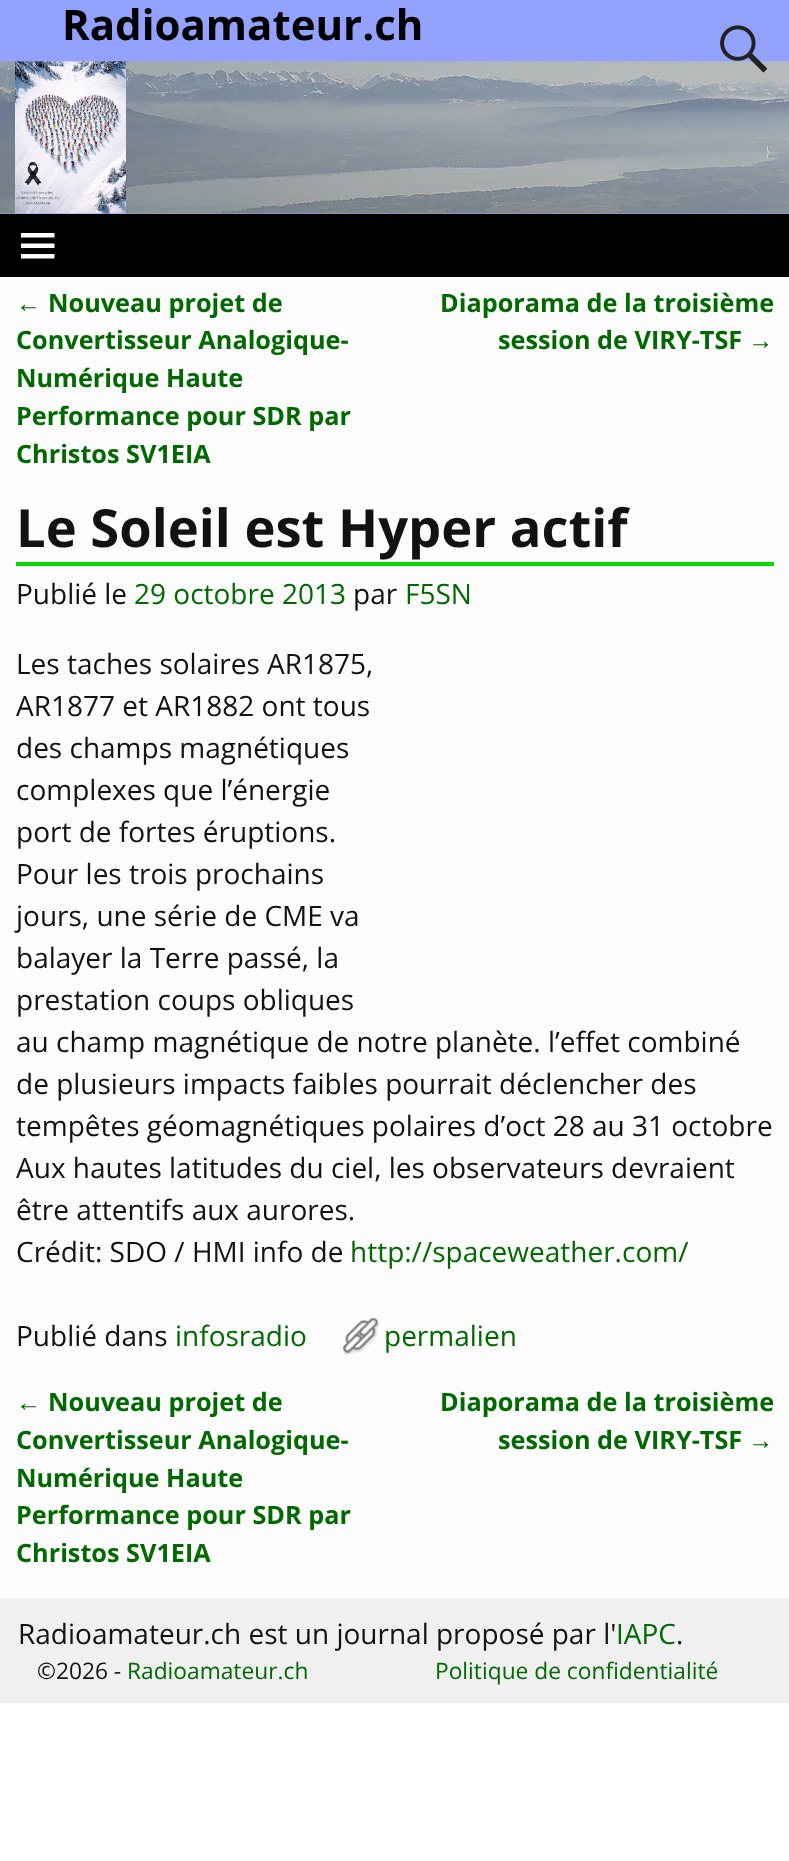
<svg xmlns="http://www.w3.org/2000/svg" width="789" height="1861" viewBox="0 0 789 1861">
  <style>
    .t1 { font: bold 42px Open Sans; fill: #000; }
    .t2 { font: 25.25px Liberation Sans; fill: #006900; }
    .t3 { font: bold 25.25px Open Sans; fill: #006900; }
    .t4 { font: bold 52.5px Open Sans; fill: #121212; }
    .t5 { font: 28px Open Sans; fill: #121212; }
    .t6 { font: 28px Open Sans; fill: #006900; }
    .t7 { font: 22.75px Open Sans; fill: #121212; }
    .t8 { font: 22.75px Open Sans; fill: #006900; }
  </style>
  <rect width="100%" height="100%" fill="#fff"/>
  <rect x="0" y="277" width="789" height="1321" fill="#fcfcfc"/>
  <rect x="0" y="0" width="789" height="214" fill="#94a2ff"/>
  <text x="62" y="40" class="t1">Radioamateur.ch</text>
  <image x="0" y="61" width="789" height="153" href="images/2.png"/>
  <image x="720" y="25" width="48" height="48" href="images/1.png"/>
  <rect x="0" y="214" width="789" height="63" fill="#000"/>
  <path d="M21 258.5V254H54.5V258.5ZM21 233H54.5V237.5H21ZM21 248V243.5H54.5V248Z" fill="#fff"/>
  <text x="16" y="312" class="t2">←</text>
  <text x="48" y="312" class="t3">Nouveau projet de</text>
  <text x="16" y="349" class="t3">Convertisseur Analogique-</text>
  <text x="16" y="387" class="t3">Numérique Haute</text>
  <text x="16" y="425" class="t3">Performance pour SDR par</text>
  <text x="16" y="463" class="t3">Christos SV1EIA</text>
  <text x="440" y="312" class="t3">Diaporama de la troisième</text>
  <text x="498" y="349" class="t3">session de VIRY-TSF</text>
  <text x="748" y="349" class="t2">→</text>
  <rect x="16" y="562" width="758" height="4" fill="#07d900"/>
  <text x="16" y="547" class="t4">Le Soleil est Hyper actif</text>
  <text x="16" y="604" class="t5">Publié le</text>
  <text x="134" y="604" class="t6">29 octobre 2013</text>
  <text x="353" y="604" class="t5">par</text>
  <text x="405" y="604" class="t6">F5SN</text>
  <text x="16" y="674" class="t5">Les taches solaires AR1875,</text>
  <text x="16" y="716" class="t5">AR1877 et AR1882 ont tous</text>
  <text x="16" y="758" class="t5">des champs magnétiques</text>
  <text x="16" y="800" class="t5">complexes que l’énergie</text>
  <text x="16" y="842" class="t5">port de fortes éruptions.</text>
  <text x="16" y="884" class="t5">Pour les trois prochains</text>
  <text x="16" y="926" class="t5">jours, une série de CME va</text>
  <text x="16" y="968" class="t5">balayer la Terre passé, la</text>
  <text x="16" y="1010" class="t5">prestation coups obliques</text>
  <text x="16" y="1052" class="t5">au champ magnétique de notre planète. l’effet combiné</text>
  <text x="16" y="1094" class="t5">de plusieurs impacts faibles pourrait déclencher des</text>
  <text x="16" y="1136" class="t5">tempêtes géomagnétiques polaires d’oct 28 au 31 octobre</text>
  <text x="16" y="1178" class="t5">Aux hautes latitudes du ciel, les observateurs devraient</text>
  <text x="16" y="1220" class="t5">être attentifs aux aurores.</text>
  <text x="16" y="1262" class="t5">Crédit: SDO / HMI info de</text>
  <text x="350" y="1262" class="t6">http://spaceweather.com/</text>
  <text x="16" y="1346" class="t5">Publié dans</text>
  <text x="175" y="1346" class="t6">infosradio</text>
  <image x="343" y="1317" width="36" height="38" href="images/3.png"/>
  <text x="384" y="1346" class="t6">permalien</text>
  <text x="16" y="1411" class="t2">←</text>
  <text x="48" y="1411" class="t3">Nouveau projet de</text>
  <text x="16" y="1449" class="t3">Convertisseur Analogique-</text>
  <text x="16" y="1487" class="t3">Numérique Haute</text>
  <text x="16" y="1524" class="t3">Performance pour SDR par</text>
  <text x="16" y="1562" class="t3">Christos SV1EIA</text>
  <text x="440" y="1411" class="t3">Diaporama de la troisième</text>
  <text x="498" y="1449" class="t3">session de VIRY-TSF</text>
  <text x="748" y="1449" class="t2">→</text>
  <rect x="0" y="1598" width="789" height="105" fill="#f0f0f0"/>
  <text x="18" y="1644" class="t5">Radioamateur.ch est un journal proposé par l'</text>
  <text x="616" y="1644" class="t6">IAPC</text>
  <text x="676" y="1644" class="t5">.</text>
  <text x="37" y="1679" class="t7">©2026 -</text>
  <text x="127" y="1679" class="t8">Radioamateur.ch</text>
  <text x="435" y="1679" class="t8">Politique de confidentialité</text>
</svg>
